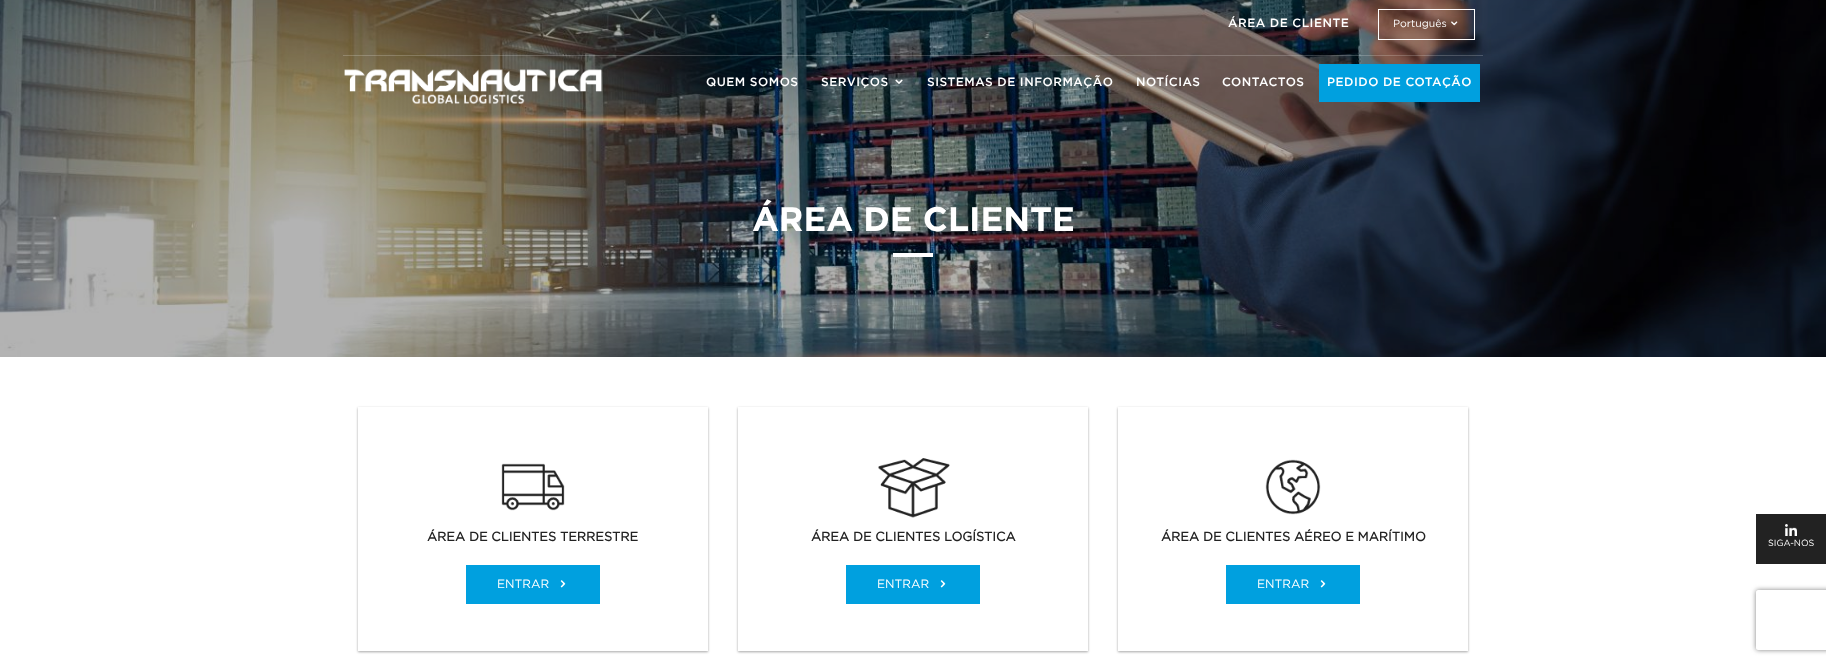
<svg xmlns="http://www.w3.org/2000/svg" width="1826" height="664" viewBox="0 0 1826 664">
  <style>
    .t1 { font: 500 12px Gotham; letter-spacing: 0.5px; fill: #fff; }
    .t2 { font: 10.5px Gotham; fill: #fff; }
    .t3 { font: bold 34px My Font; fill: #fff; }
    .t4 { font: bold 12.8px Gotham; fill: #222; }
    .t5 { font: 12px Gotham; fill: #fff; }
    .t6 { font: 9px Gotham; fill: #fff; }
  </style>
  <defs>
    <clipPath id="clip1"><path d="M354 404H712V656H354ZM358 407H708V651H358Z" clip-rule="evenodd"/></clipPath>
    <clipPath id="clip2"><path d="M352 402H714V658H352ZM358 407H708V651H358Z" clip-rule="evenodd"/></clipPath>
    <clipPath id="clip3"><path d="M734 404H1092V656H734ZM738 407H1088V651H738Z" clip-rule="evenodd"/></clipPath>
    <clipPath id="clip4"><path d="M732 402H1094V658H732ZM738 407H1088V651H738Z" clip-rule="evenodd"/></clipPath>
    <clipPath id="clip5"><path d="M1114 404H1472V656H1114ZM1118 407H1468V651H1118Z" clip-rule="evenodd"/></clipPath>
    <clipPath id="clip6"><path d="M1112 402H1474V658H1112ZM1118 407H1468V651H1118Z" clip-rule="evenodd"/></clipPath>
    <clipPath id="clip7"><path d="M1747 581H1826V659H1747ZM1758 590H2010C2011 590 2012 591 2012 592V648C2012 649 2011 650 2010 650H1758C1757 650 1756 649 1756 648V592C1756 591 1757 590 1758 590Z" clip-rule="evenodd"/></clipPath>
  </defs>
  <rect width="100%" height="100%" fill="#fff"/>
  <image x="0" y="0" width="1826" height="357" href="images/4.png"/>
  <text x="1228" y="27" class="t1">ÁREA DE CLIENTE</text>
  <rect x="1378.5" y="9.5" width="96" height="30" fill="none" stroke="#fff"/>
  <text x="1393" y="27" class="t2">Português</text>
  <image x="1451" y="21" width="7" height="5" href="images/1.png"/>
  <rect x="343" y="55" width="1140" height="1" fill="#ffffff33"/>
  <image x="344" y="69" width="259" height="35" href="images/2.png"/>
  <text x="706" y="86" class="t1">QUEM SOMOS</text>
  <text x="821" y="86" class="t1">SERVIÇOS</text>
  <image x="895" y="79" width="8" height="5" href="images/3.png"/>
  <text x="927" y="86" class="t1">SISTEMAS DE INFORMAÇÃO</text>
  <text x="1136" y="86" class="t1">NOTÍCIAS</text>
  <text x="1222" y="86" class="t1">CONTACTOS</text>
  <rect x="1319" y="64" width="161" height="38" fill="#00a0df"/>
  <text x="1327" y="86" class="t1">PEDIDO DE COTAÇÃO</text>
  <text x="752" y="231" class="t3">ÁREA DE CLIENTE</text>
  <rect x="893" y="253" width="40" height="4" fill="#fff"/>
  <g clip-path="url(#clip1)">
    <rect x="358" y="408" width="350" height="244" fill="#0000003d" filter="blur(1px)"/>
  </g>
  <g clip-path="url(#clip2)">
    <rect x="358" y="408" width="350" height="244" fill="#0000001f" filter="blur(1.5px)"/>
  </g>
  <image x="501" y="463" width="64" height="48" href="images/5.png"/>
  <text x="427" y="541" class="t4">ÁREA DE CLIENTES TERRESTRE</text>
  <rect x="466" y="565" width="134" height="39" fill="#00a0df"/>
  <text x="497" y="588" class="t5">ENTRAR</text>
  <image x="560" y="580" width="6" height="8" href="images/6.png"/>
  <g clip-path="url(#clip3)">
    <rect x="738" y="408" width="350" height="244" fill="#0000003d" filter="blur(1px)"/>
  </g>
  <g clip-path="url(#clip4)">
    <rect x="738" y="408" width="350" height="244" fill="#0000001f" filter="blur(1.5px)"/>
  </g>
  <image x="878" y="458" width="72" height="60" href="images/7.png"/>
  <text x="811" y="541" class="t4">ÁREA DE CLIENTES LOGÍSTICA</text>
  <rect x="846" y="565" width="134" height="39" fill="#00a0df"/>
  <text x="877" y="588" class="t5">ENTRAR</text>
  <image x="940" y="580" width="6" height="8" href="images/6.png"/>
  <g clip-path="url(#clip5)">
    <rect x="1118" y="408" width="350" height="244" fill="#0000003d" filter="blur(1px)"/>
  </g>
  <g clip-path="url(#clip6)">
    <rect x="1118" y="408" width="350" height="244" fill="#0000001f" filter="blur(1.5px)"/>
  </g>
  <image x="1265" y="459" width="56" height="56" href="images/8.png"/>
  <text x="1161" y="541" class="t4">ÁREA DE CLIENTES AÉREO E MARÍTIMO</text>
  <rect x="1226" y="565" width="134" height="39" fill="#00a0df"/>
  <text x="1257" y="588" class="t5">ENTRAR</text>
  <image x="1320" y="580" width="6" height="8" href="images/6.png"/>
  <rect x="1756" y="514" width="70" height="50" fill="#222"/>
  <image x="1785" y="524" width="12" height="12" href="images/9.png"/>
  <text x="1768" y="546" class="t6">SIGA-NOS</text>
  <g clip-path="url(#clip7)">
    <rect x="1756" y="590" width="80" height="60" rx="2" fill="#808080" filter="blur(2.5px)"/>
  </g>
</svg>
